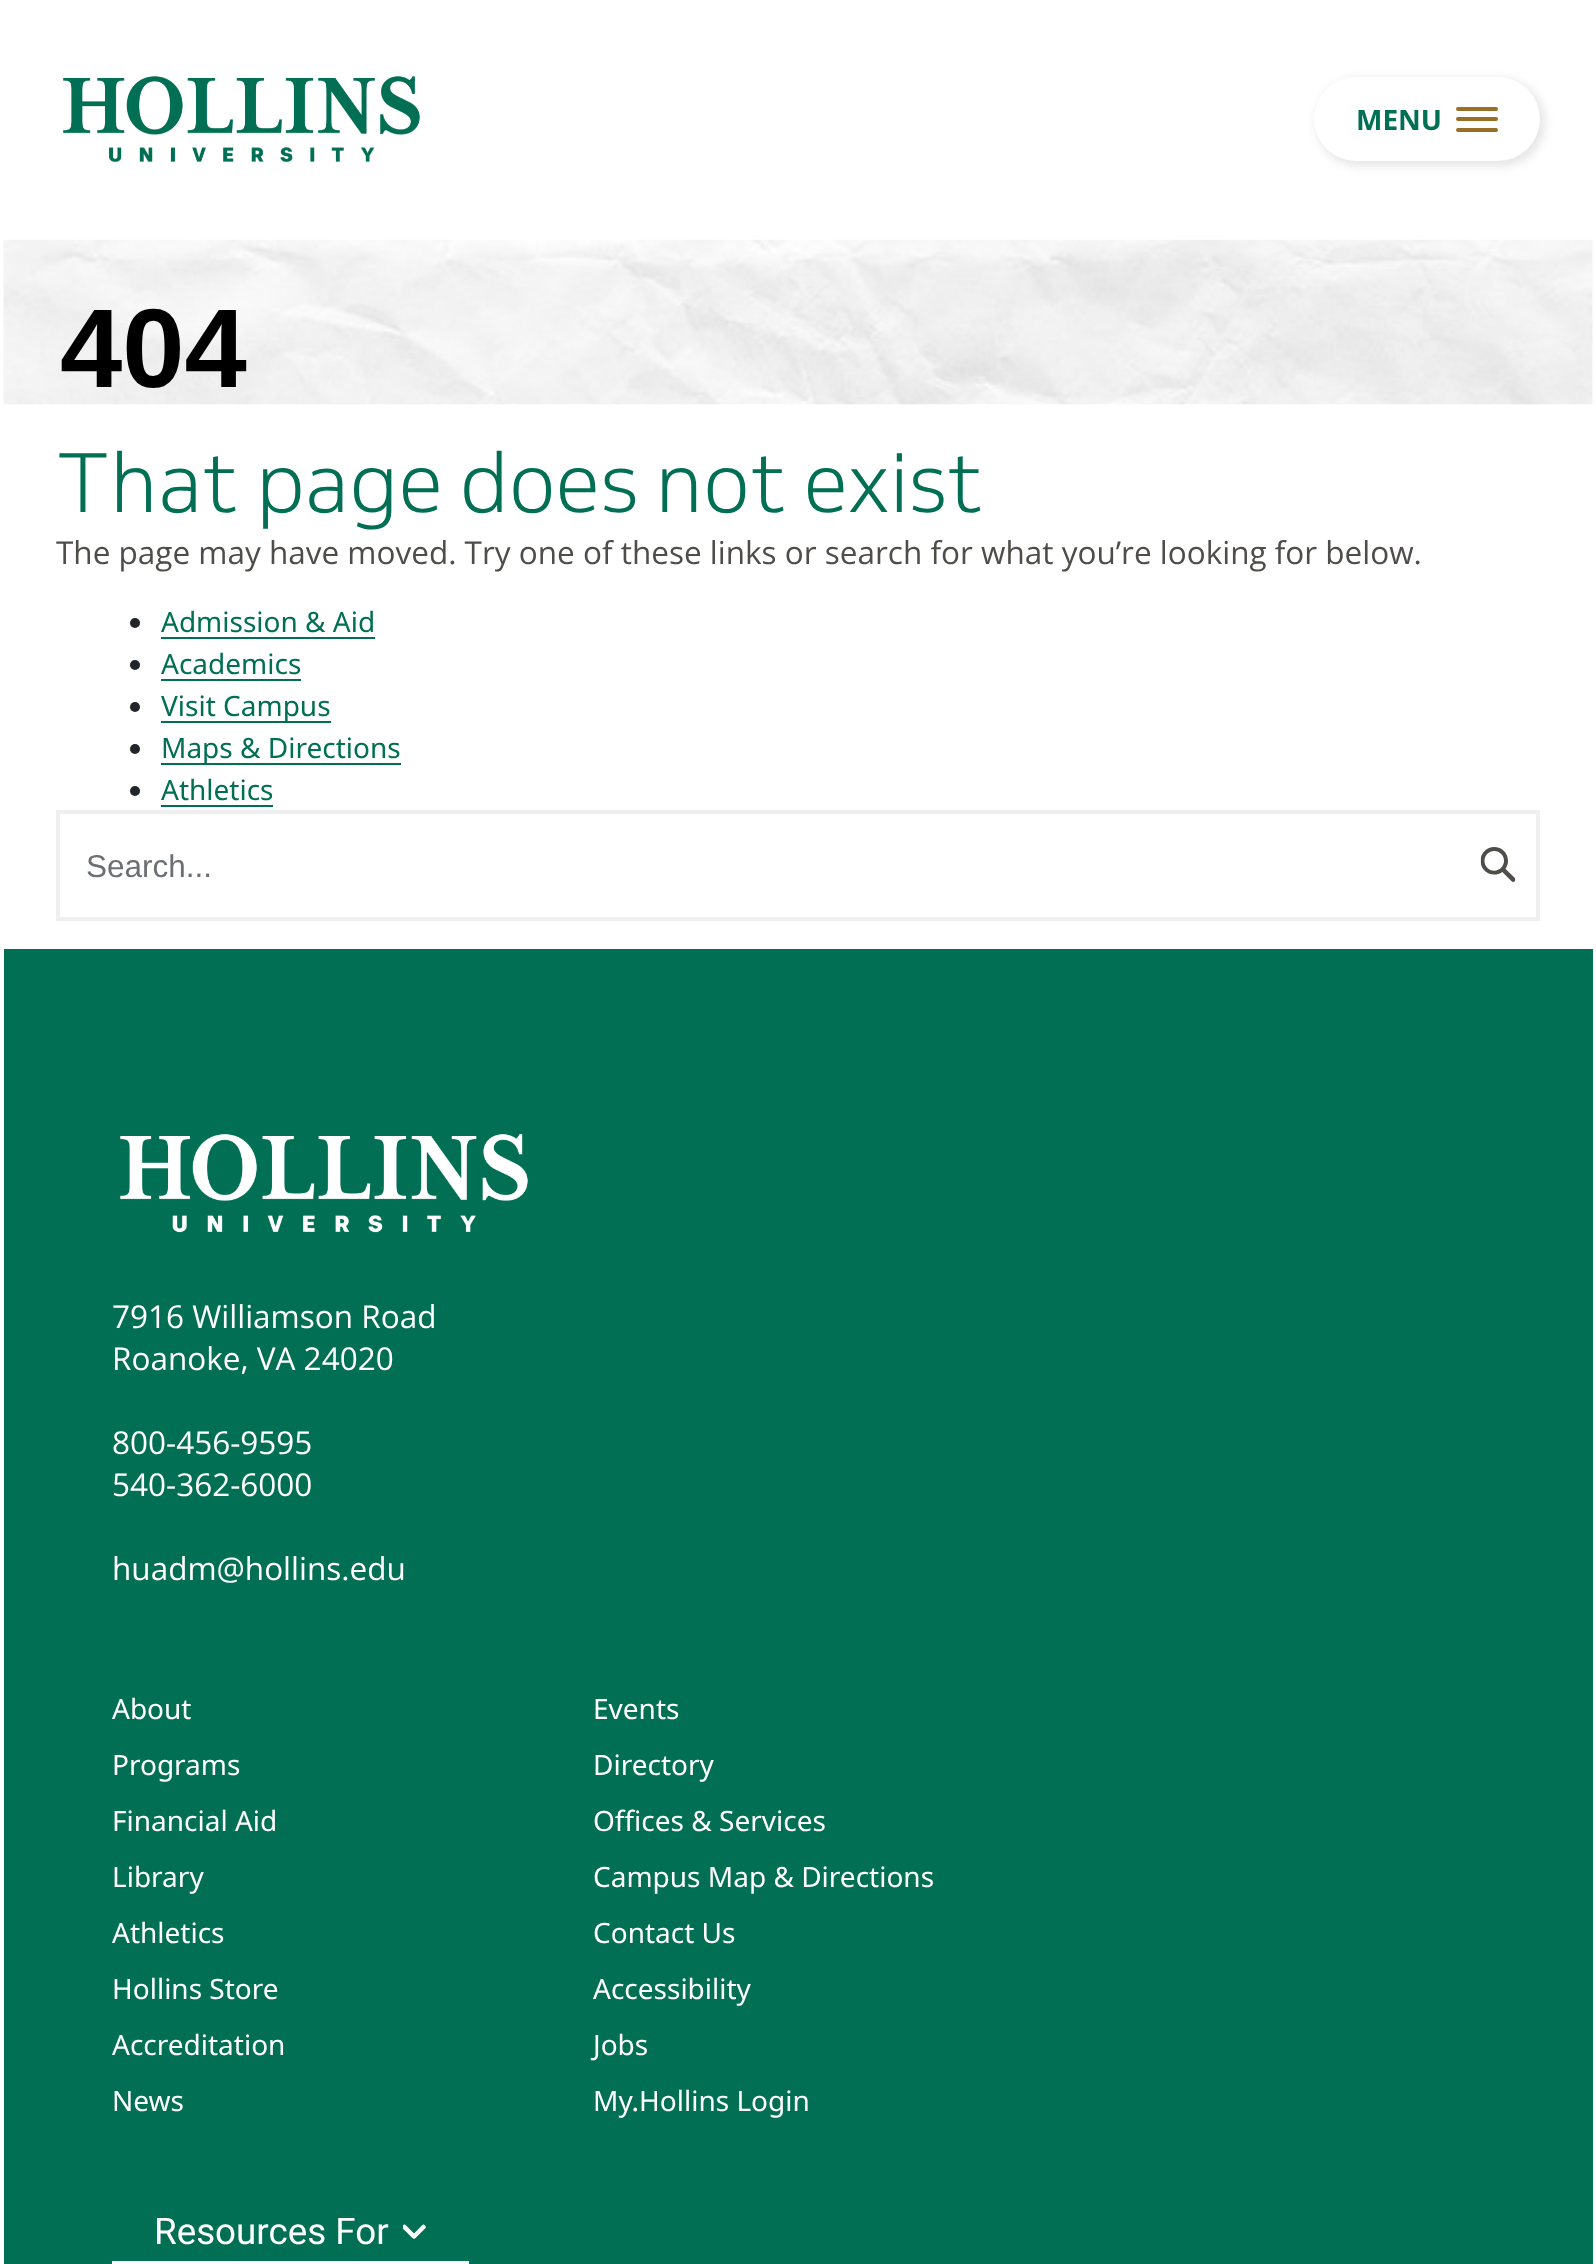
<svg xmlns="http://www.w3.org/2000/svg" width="1596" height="2264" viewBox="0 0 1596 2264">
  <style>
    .t1 { font: bold 28px Noto Sans; fill: #006f54; }
    .t2 { font: bold 112px Liberation Sans; fill: #000; }
    .t3 { font: 300 84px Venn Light; fill: #006f54; }
    .t4 { font: 31.5px Open Sans; fill: #4e4d49; }
    .t5 { font: 28px Noto Sans; fill: #006f54; }
    .t6 { font: 31.5px Liberation Sans; fill: #6c6f72; }
    .t7 { font: 31.5px Open Sans; fill: #fff; }
    .t8 { font: 28px Noto Sans; fill: #fff; }
    .t9 { font: 36.75px Roboto; fill: #fff; }
  </style>
  <defs>
    <clipPath id="clip1"><rect x="403" y="2224" width="24" height="16"/></clipPath>
  </defs>
  <rect width="100%" height="100%" fill="#fff"/>
  <image x="63" y="76" width="357" height="87" href="images/1.png"/>
  <rect x="1316" y="79" width="229" height="87" rx="43.5" fill="#0000001a" filter="blur(5px)"/>
  <rect x="1314" y="77" width="226" height="84" rx="42" fill="#fff"/>
  <text x="1356" y="130" class="t1">MENU</text>
  <rect x="1456" y="107" width="42" height="4" rx="2" fill="#996f28"/>
  <rect x="1456" y="117" width="42" height="4" rx="2" fill="#996f28"/>
  <rect x="1456" y="128" width="42" height="4" rx="2" fill="#996f28"/>
  <image x="3" y="239" width="1590" height="166" href="images/2.png"/>
  <text x="60" y="387" class="t2">404</text>
  <text x="56" y="512" class="t3">That page does not exist</text>
  <text x="56" y="564" class="t4">The page may have moved. Try one of these links or search for what you’re looking for below.</text>
  <circle cx="135" cy="623" r="5" fill="#212529"/>
  <text x="161" y="632" class="t5">Admission &amp; Aid</text>
  <rect x="161" y="637" width="214" height="2" fill="#006f54"/>
  <circle cx="135" cy="665" r="5" fill="#212529"/>
  <text x="161" y="674" class="t5">Academics</text>
  <rect x="161" y="679" width="140" height="2" fill="#006f54"/>
  <circle cx="135" cy="707" r="5" fill="#212529"/>
  <rect x="161" y="721" width="170" height="2" fill="#006f54"/>
  <text x="161" y="716" class="t5">Visit Campus</text>
  <circle cx="135" cy="749" r="5" fill="#212529"/>
  <rect x="161" y="763" width="240" height="2" fill="#006f54"/>
  <text x="161" y="758" class="t5">Maps &amp; Directions</text>
  <circle cx="135" cy="791" r="5" fill="#212529"/>
  <text x="161" y="800" class="t5">Athletics</text>
  <rect x="161" y="805" width="112" height="2" fill="#006f54"/>
  <rect x="58" y="812" width="1480" height="107" fill="none" stroke="#efefef" stroke-width="4"/>
  <text x="86" y="877" class="t6">Search...</text>
  <image x="1480" y="847" width="36" height="35" href="images/3.png"/>
  <rect x="4" y="949" width="1589" height="1315" fill="#006f54"/>
  <image x="120" y="1134" width="408" height="99" href="images/4.png"/>
  <text x="112" y="1328" class="t7">7916 Williamson Road</text>
  <text x="112" y="1370" class="t7">Roanoke, VA 24020</text>
  <text x="112" y="1454" class="t7">800-456-9595</text>
  <text x="112" y="1496" class="t7">540-362-6000</text>
  <text x="112" y="1580" class="t7">huadm@hollins.edu</text>
  <text x="112" y="1719" class="t8">About</text>
  <text x="593" y="1719" class="t8">Events</text>
  <text x="112" y="1775" class="t8">Programs</text>
  <text x="593" y="1775" class="t8">Directory</text>
  <text x="112" y="1831" class="t8">Financial Aid</text>
  <text x="593" y="1831" class="t8">Offices &amp; Services</text>
  <text x="112" y="1887" class="t8">Library</text>
  <text x="593" y="1887" class="t8">Campus Map &amp; Directions</text>
  <text x="112" y="1943" class="t8">Athletics</text>
  <text x="593" y="1943" class="t8">Contact Us</text>
  <text x="112" y="1999" class="t8">Hollins Store</text>
  <text x="593" y="1999" class="t8">Accessibility</text>
  <text x="112" y="2055" class="t8">Accreditation</text>
  <text x="593" y="2055" class="t8">Jobs</text>
  <text x="112" y="2111" class="t8">News</text>
  <text x="593" y="2111" class="t8">My.Hollins Login</text>
  <rect x="112" y="2261" width="357" height="3" fill="#fff"/>
  <text x="154" y="2244" class="t9">Resources For</text>
  <g clip-path="url(#clip1)">
    <path d="M423.5 2227L414 2236.5L404.5 2227" fill="none" stroke="#fff" stroke-width="4.5" stroke-linecap="round" stroke-linejoin="round"/>
  </g>
</svg>
